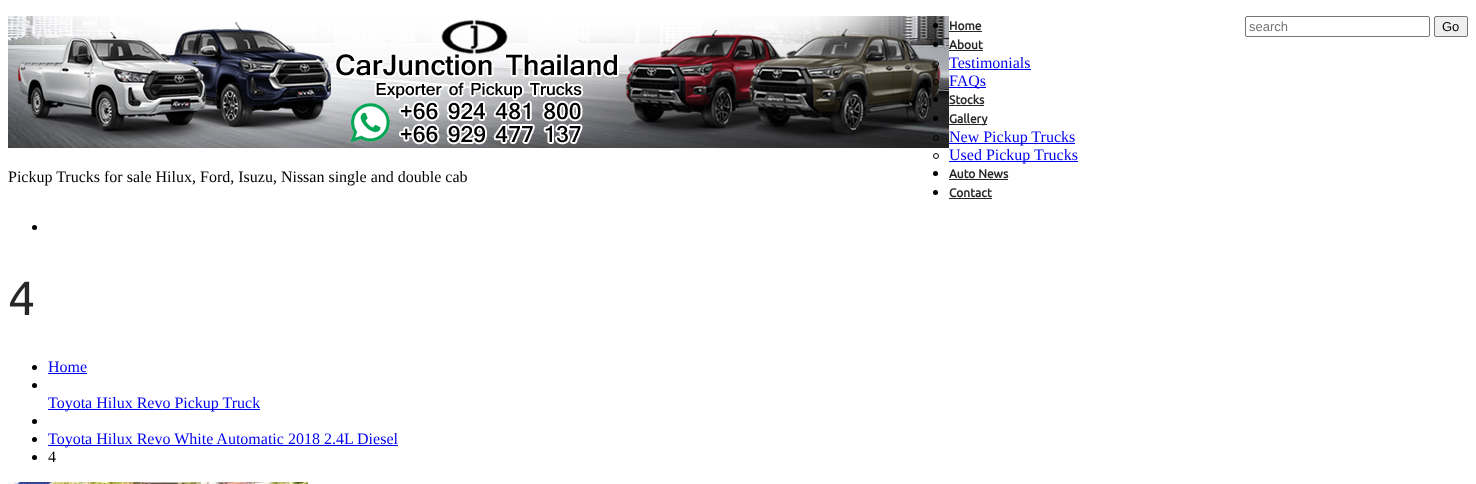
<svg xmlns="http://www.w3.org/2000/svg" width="1476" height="484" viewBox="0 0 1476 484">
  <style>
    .t1 { font: bold 12px Ubuntu; fill: #262728; }
    .t2 { font: 16px Liberation Serif; fill: #00e; }
    .t3 { font: 13px Liberation Sans; fill: #757575; }
    .t4 { font: 13px Liberation Sans; fill: #000; }
    .t5 { font: 16px Liberation Serif; fill: #000; }
    .t6 { font: 48px Ubuntu; fill: #262728; }
  </style>
  <rect width="100%" height="100%" fill="#fff"/>
  <image x="8" y="16" width="941" height="132" href="images/1.png"/>
  <circle cx="935.5" cy="25.5" r="2.5" fill="#000"/>
  <text x="949" y="30" class="t1">Home</text>
  <rect x="949" y="31" width="33" height="1" fill="#262728"/>
  <circle cx="935.5" cy="44.5" r="2.5" fill="#000"/>
  <text x="949" y="49" class="t1">About</text>
  <rect x="949" y="50" width="34" height="1" fill="#262728"/>
  <circle cx="936" cy="64" r="2.5" fill="none" stroke="#000"/>
  <text x="949" y="68" class="t2">Testimonials</text>
  <rect x="949" y="69" width="82" height="1" fill="#00e"/>
  <circle cx="936" cy="82" r="2.5" fill="none" stroke="#000"/>
  <rect x="949" y="87" width="37" height="1" fill="#00e"/>
  <text x="949" y="86" class="t2">FAQs</text>
  <circle cx="935.5" cy="99.5" r="2.5" fill="#000"/>
  <text x="949" y="104" class="t1">Stocks</text>
  <rect x="949" y="105" width="35" height="1" fill="#262728"/>
  <circle cx="935.5" cy="118.5" r="2.5" fill="#000"/>
  <rect x="949" y="124" width="38" height="1" fill="#262728"/>
  <text x="949" y="123" class="t1">Gallery</text>
  <circle cx="936" cy="138" r="2.5" fill="none" stroke="#000"/>
  <rect x="949" y="143" width="126" height="1" fill="#00e"/>
  <text x="949" y="142" class="t2">New Pickup Trucks</text>
  <circle cx="936" cy="156" r="2.5" fill="none" stroke="#000"/>
  <rect x="949" y="161" width="129" height="1" fill="#00e"/>
  <text x="949" y="160" class="t2">Used Pickup Trucks</text>
  <circle cx="935.5" cy="173.5" r="2.5" fill="#000"/>
  <text x="949" y="178" class="t1">Auto News</text>
  <rect x="949" y="179" width="59" height="1" fill="#262728"/>
  <circle cx="935.5" cy="192.5" r="2.5" fill="#000"/>
  <text x="949" y="197" class="t1">Contact</text>
  <rect x="949" y="198" width="43" height="1" fill="#262728"/>
  <circle cx="34.5" cy="227.5" r="2.5" fill="#000"/>
  <rect x="1245.5" y="16.5" width="184" height="20" rx="1.5" fill="none" stroke="#767676"/>
  <text x="1249" y="31" class="t3">search</text>
  <rect x="1434.5" y="16.5" width="33" height="20" rx="1.5" fill="#efefef" stroke="#767676"/>
  <text x="1442" y="31" class="t4">Go</text>
  <text x="8" y="182" class="t5">Pickup Trucks for sale Hilux, Ford, Isuzu, Nissan single and double cab</text>
  <text x="8" y="315" class="t6">4</text>
  <circle cx="34.5" cy="367.5" r="2.5" fill="#000"/>
  <text x="48" y="372" class="t2">Home</text>
  <rect x="48" y="373" width="39" height="1" fill="#00e"/>
  <circle cx="34.5" cy="385.5" r="2.5" fill="#000"/>
  <rect x="48" y="409" width="212" height="1" fill="#00e"/>
  <text x="48" y="408" class="t2">Toyota Hilux Revo Pickup Truck</text>
  <circle cx="34.5" cy="421.5" r="2.5" fill="#000"/>
  <circle cx="34.5" cy="439.5" r="2.5" fill="#000"/>
  <rect x="48" y="445" width="350" height="1" fill="#00e"/>
  <text x="48" y="444" class="t2">Toyota Hilux Revo White Automatic 2018 2.4L Diesel</text>
  <circle cx="34.5" cy="457.5" r="2.5" fill="#000"/>
  <text x="48" y="462" class="t5">4</text>
  <image x="8" y="482" width="300" height="2" href="images/2.png"/>
</svg>
